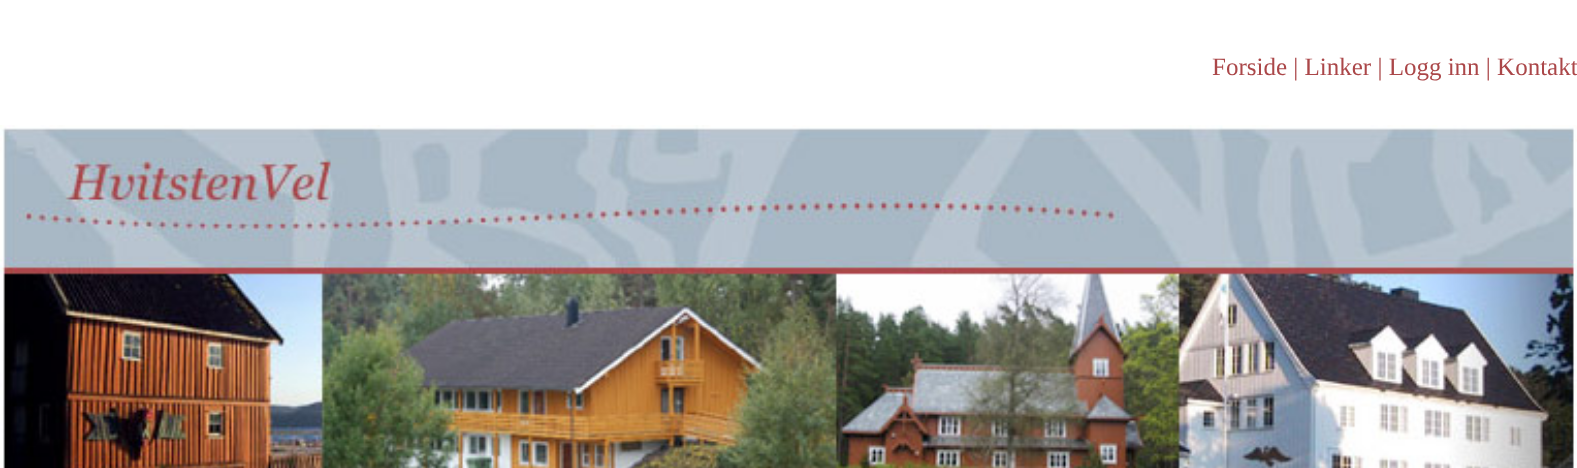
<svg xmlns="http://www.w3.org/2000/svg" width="1577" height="468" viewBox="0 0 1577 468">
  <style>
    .t1 { font: 25px Liberation Serif; fill: #ab4749; }
  </style>
  <rect width="100%" height="100%" fill="#fff"/>
  <text x="1212" y="75" class="t1">Forside | Linker | Logg inn | Kontakt</text>
  <image x="0" y="125" width="1577" height="343" href="images/1.png"/>
</svg>
